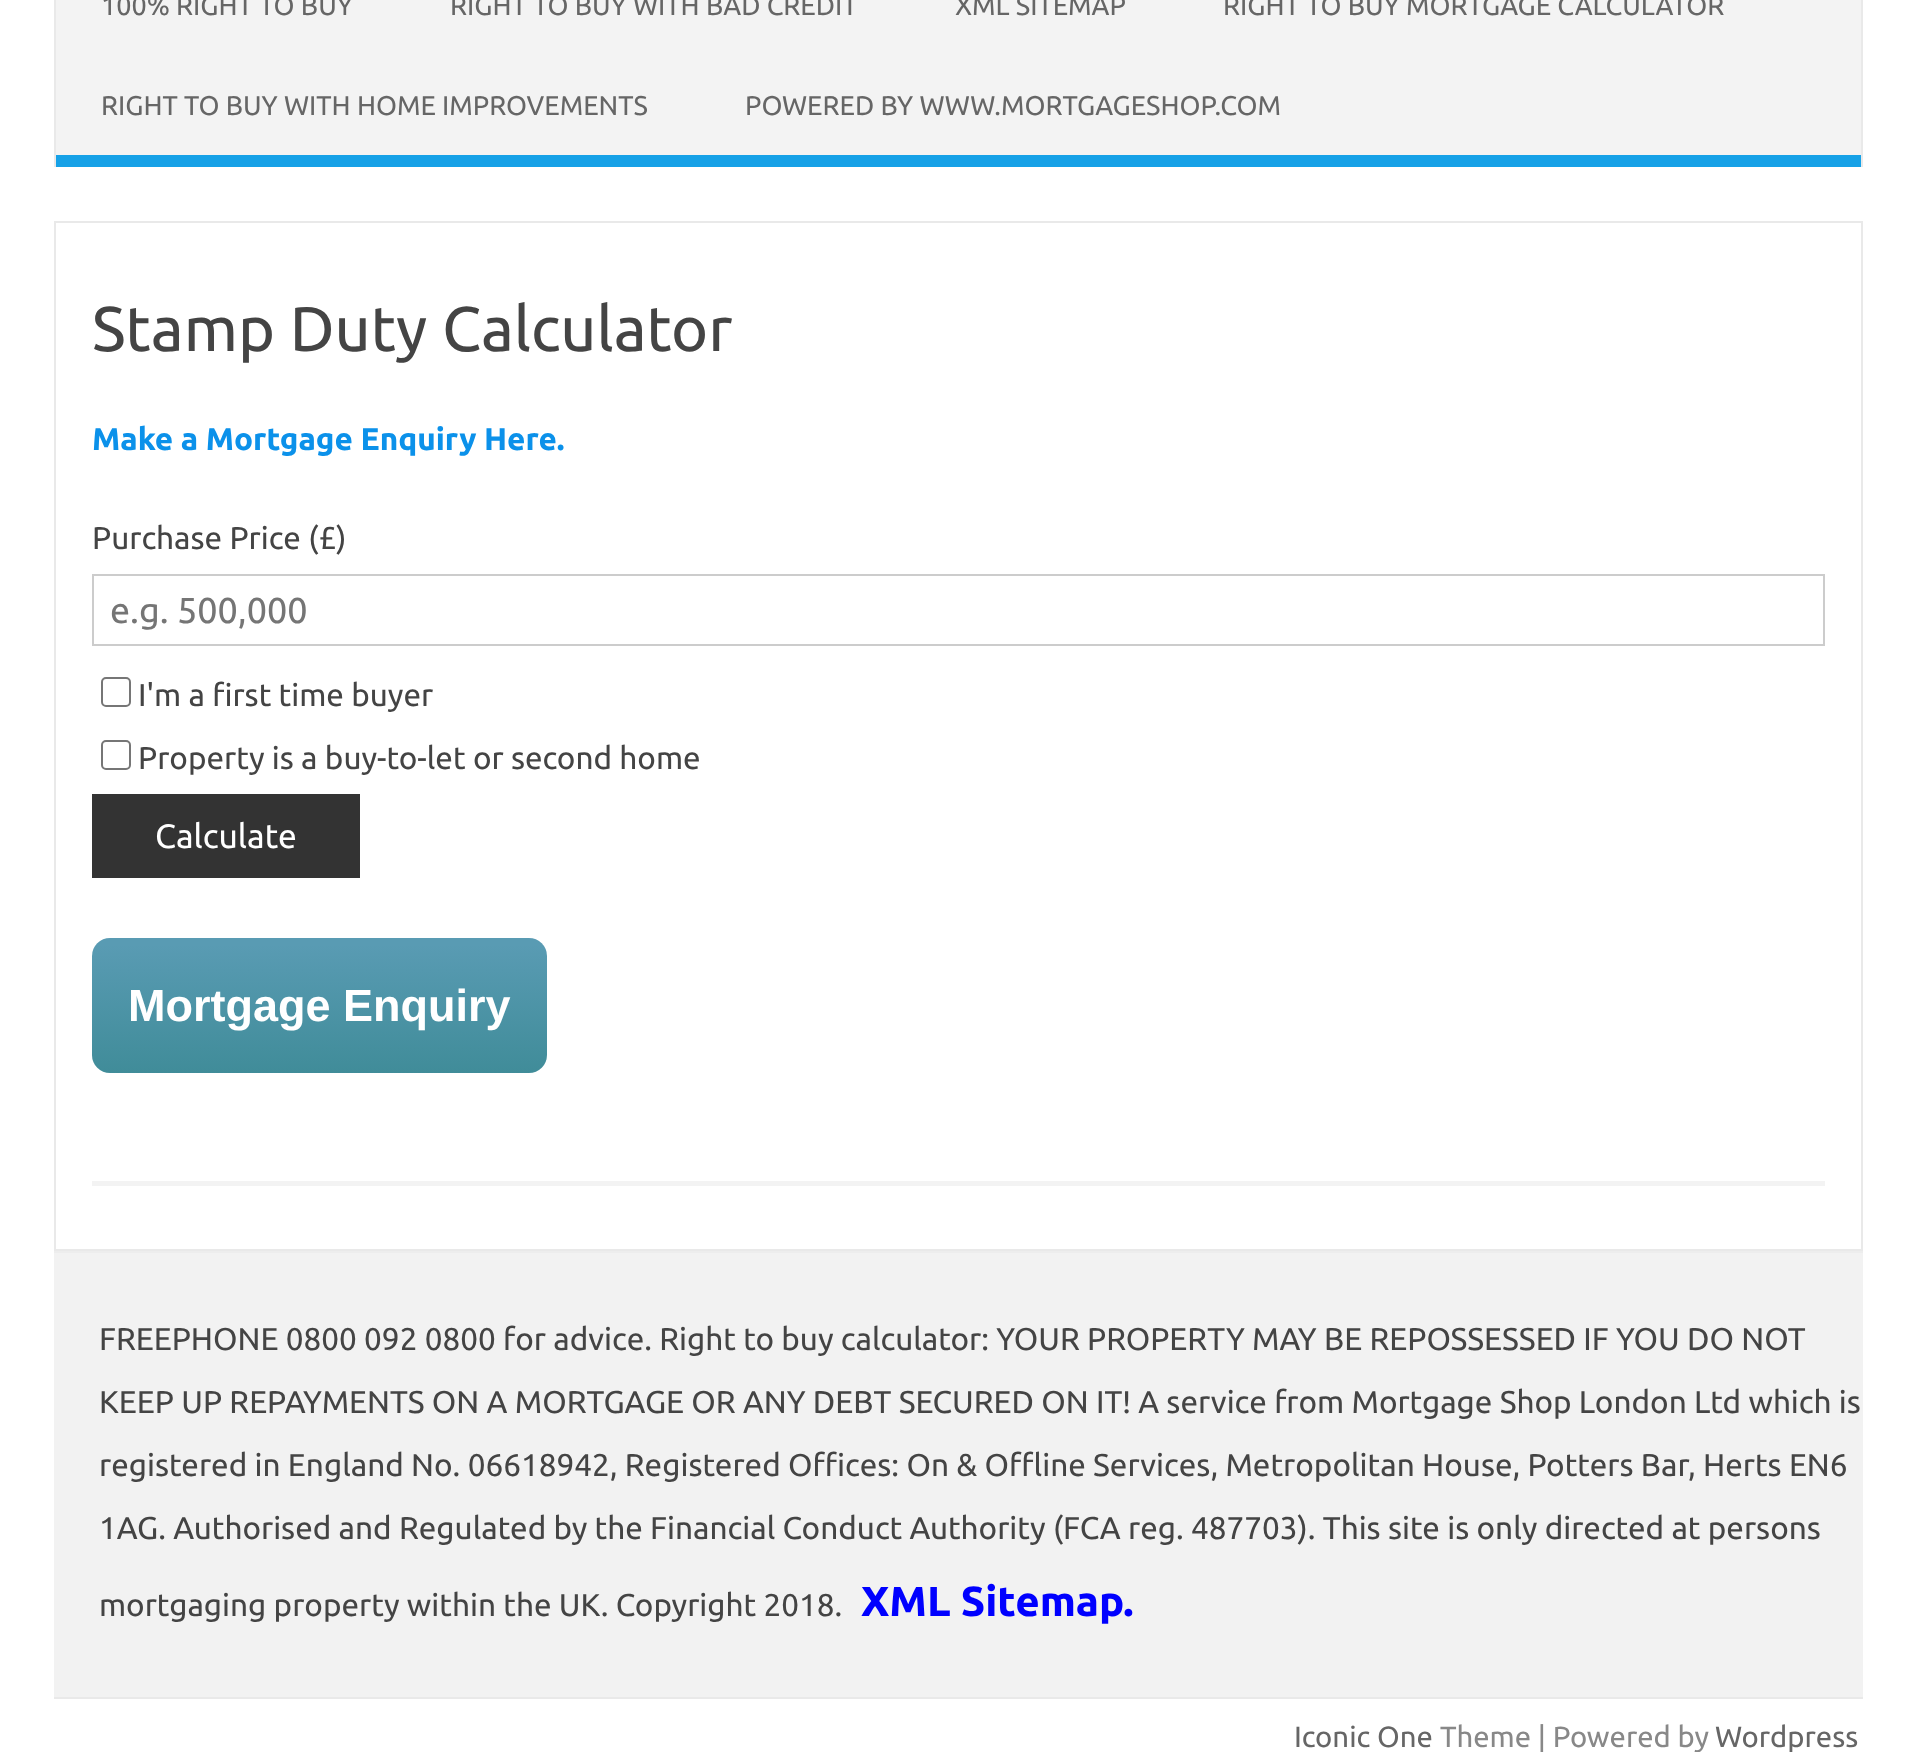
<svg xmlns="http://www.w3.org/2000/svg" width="1917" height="1752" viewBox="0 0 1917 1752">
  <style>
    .t1 { font: 27px Ubuntu; fill: #666; }
    .t2 { font: 63px Ubuntu; fill: #444; }
    .t3 { font: bold 31.5px Ubuntu; fill: #0b91ea; }
    .t4 { font: 31.5px Ubuntu; fill: #444; }
    .t5 { font: 36px Ubuntu; fill: #757575; }
    .t6 { font: 33.75px Ubuntu; fill: #fff; }
    .t7 { font: bold 45px Liberation Sans; fill: #fff; }
    .t8 { font: bold 42px Ubuntu; fill: #00f; }
    .t9 { font: 29.25px Ubuntu; fill: #666; }
    .t10 { font: 29.25px Ubuntu; fill: #888; }
  </style>
  <defs>
    <linearGradient id="g1" gradientUnits="userSpaceOnUse" x1="320" y1="938" x2="320" y2="1073"><stop offset="0.05" stop-color="#599bb3"/><stop offset="1" stop-color="#408c99"/></linearGradient>
  </defs>
  <rect width="100%" height="100%" fill="#fff"/>
  <rect x="1861" y="0" width="2" height="167" fill="#e9e9e9"/>
  <rect x="54" y="0" width="2" height="167" fill="#e9e9e9"/>
  <rect x="56" y="0" width="1805" height="155" fill="#f3f3f3"/>
  <rect x="56" y="155" width="1805" height="12" fill="#16a1e7"/>
  <text x="101" y="15" class="t1">100% RIGHT TO BUY</text>
  <text x="450" y="15" class="t1">RIGHT TO BUY WITH BAD CREDIT</text>
  <text x="955" y="15" class="t1">XML SITEMAP</text>
  <text x="1223" y="15" class="t1">RIGHT TO BUY MORTGAGE CALCULATOR</text>
  <text x="101" y="115" class="t1">RIGHT TO BUY WITH HOME IMPROVEMENTS</text>
  <text x="745" y="115" class="t1">POWERED BY WWW.MORTGAGESHOP.COM</text>
  <rect x="55" y="222" width="1807" height="1028" fill="none" stroke="#e9e9e9" stroke-width="2"/>
  <rect x="92" y="1181" width="1733" height="5" fill="#f3f3f3"/>
  <text x="92" y="351" class="t2">Stamp Duty Calculator</text>
  <text x="92" y="450" class="t3">Make a Mortgage Enquiry Here.</text>
  <text x="92" y="549" class="t4">Purchase Price (£)</text>
  <rect x="93" y="575" width="1731" height="70" fill="none" stroke="#ccc" stroke-width="2"/>
  <text x="110" y="623" class="t5">e.g. 500,000</text>
  <rect x="102" y="678" width="28" height="28" rx="4" fill="none" stroke="#767676" stroke-width="2"/>
  <text x="138" y="706" class="t4">I'm a first time buyer</text>
  <rect x="102" y="741" width="28" height="28" rx="4" fill="none" stroke="#767676" stroke-width="2"/>
  <text x="138" y="769" class="t4">Property is a buy-to-let or second home</text>
  <rect x="92" y="794" width="268" height="84" fill="#333"/>
  <text x="155" y="848" class="t6">Calculate</text>
  <rect x="92" y="938" width="455" height="135" rx="18" fill="url(#g1)"/>
  <text x="128" y="1021" class="t7">Mortgage Enquiry</text>
  <rect x="54" y="1253" width="1809" height="444" fill="#f2f2f2"/>
  <rect x="54" y="1251" width="1809" height="2" fill="#ededed"/>
  <rect x="54" y="1697" width="1809" height="2" fill="#e9e9e9"/>
  <text x="99" y="1350" class="t4">FREEPHONE 0800 092 0800 for advice. Right to buy calculator: YOUR PROPERTY MAY BE REPOSSESSED IF YOU DO NOT</text>
  <text x="99" y="1413" class="t4">KEEP UP REPAYMENTS ON A MORTGAGE OR ANY DEBT SECURED ON IT! A service from Mortgage Shop London Ltd which is</text>
  <text x="99" y="1476" class="t4">registered in England No. 06618942, Registered Offices: On &amp; Offline Services, Metropolitan House, Potters Bar, Herts EN6</text>
  <text x="99" y="1539" class="t4">1AG. Authorised and Regulated by the Financial Conduct Authority (FCA reg. 487703). This site is only directed at persons</text>
  <text x="99" y="1616" class="t4">mortgaging property within the UK. Copyright 2018.</text>
  <text x="861" y="1616" class="t8">XML Sitemap.</text>
  <text x="1294" y="1747" class="t9">Iconic One</text>
  <text x="1440" y="1747" class="t10">Theme | Powered by</text>
  <text x="1715" y="1747" class="t9">Wordpress</text>
</svg>
